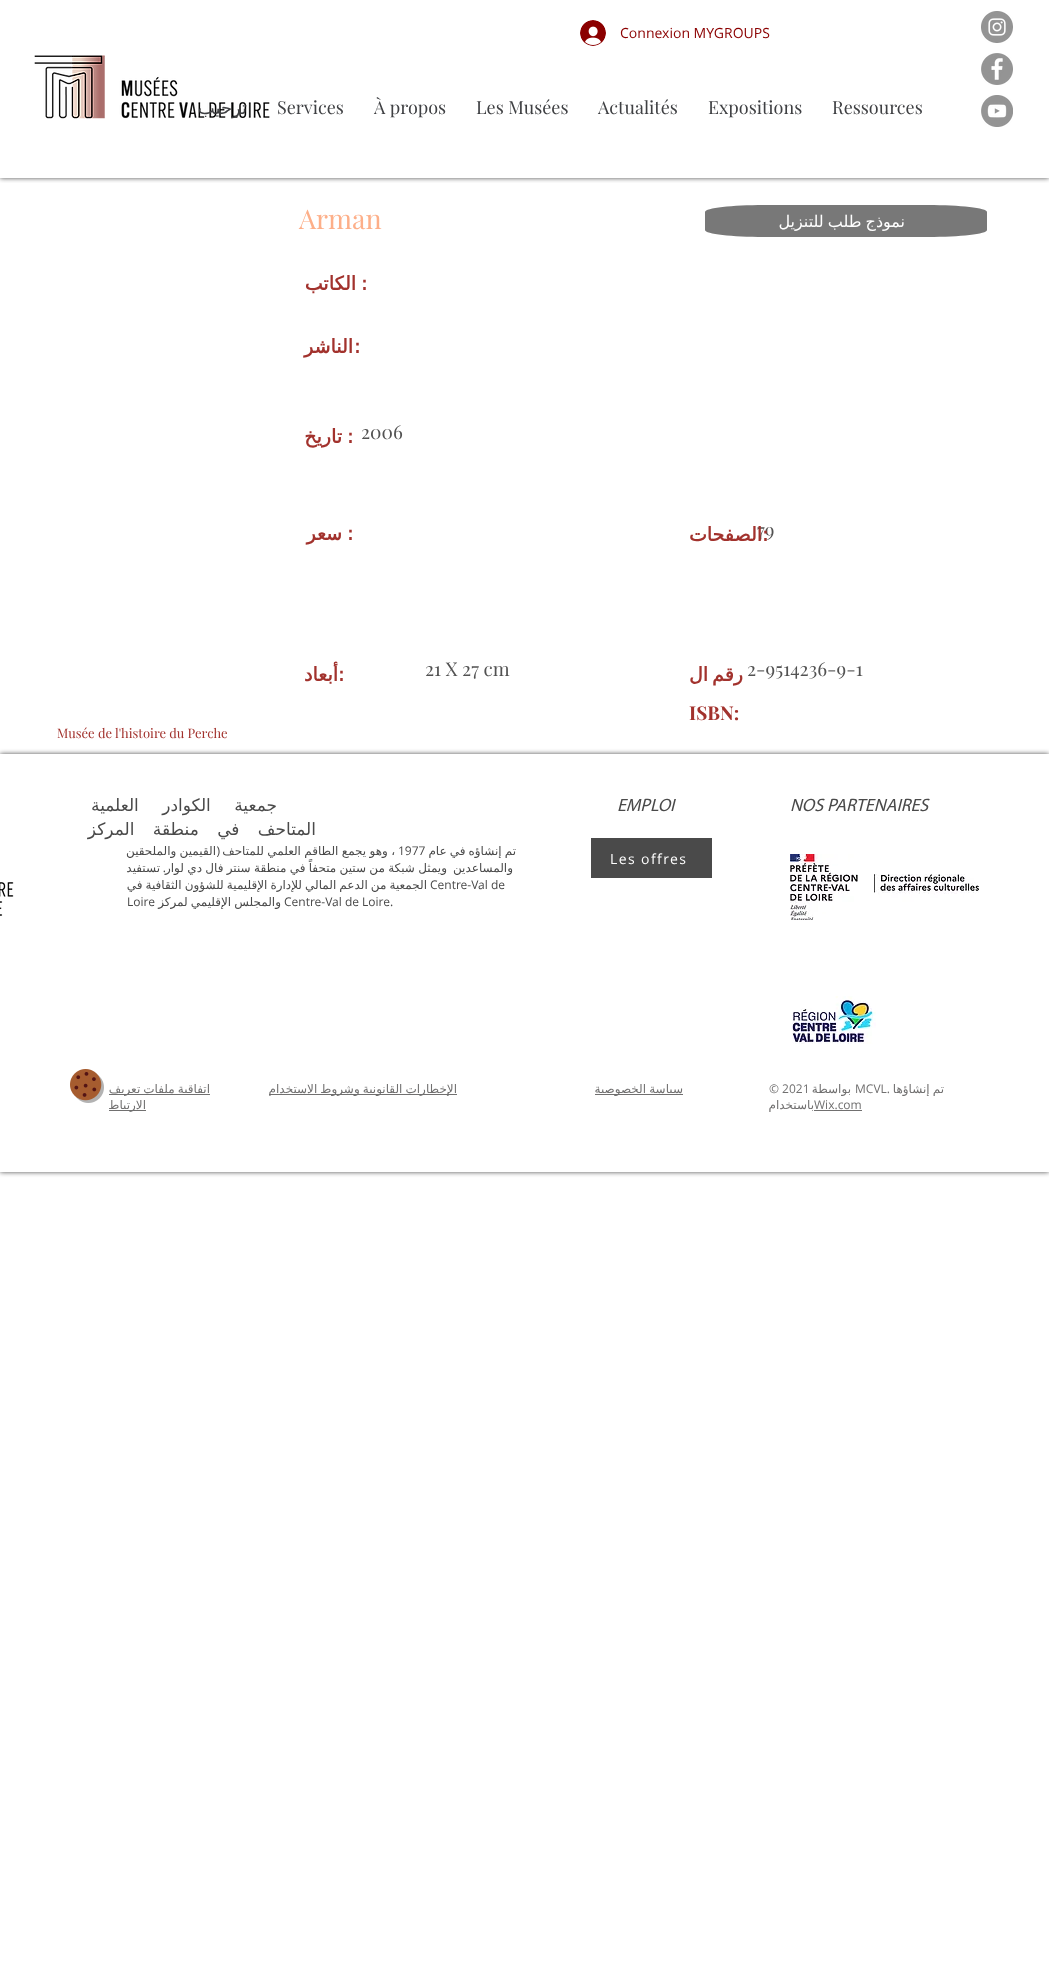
<svg xmlns="http://www.w3.org/2000/svg" width="1049" height="1983" viewBox="0 0 1049 1983">
  <style>
    .t1 { font: 14px Open Sans; fill: #8b0000; }
    .t2 { font: 18px Playfair Display; fill: #3f4043; }
    .t3 { font: 18px DejaVu Sans; direction: rtl; fill: #3f4043; }
    .t4 { font: 27px Playfair Display; fill: #fdaf89; }
    .t5 { font: 16px DejaVu Sans; direction: rtl; fill: #fff; }
    .t6 { font: bold 19px DejaVu Sans; fill: #a2322d; }
    .t7 { font: bold 19px DejaVu Sans; direction: rtl; fill: #a2322d; }
    .t8 { font: 19px Playfair Display; fill: #525252; }
    .t9 { font: bold 19px Playfair Display; fill: #a2322d; }
    .t10 { font: 13px Playfair Display; fill: #a2322d; }
    .t11 { font: italic 18px Myriad; fill: #4a4a4a; }
    .t12 { font: 17px DejaVu Sans; letter-spacing: -1.7px; direction: rtl; fill: #4a4a4a; }
    .t13 { font: 12px DejaVu Sans; direction: rtl; fill: #4a4a4a; }
    .t14 { font: 12px Open Sans; fill: #4a4a4a; }
    .t15 { font: 12px Open Sans; direction: rtl; fill: #4a4a4a; }
    .t16 { font: 14px Open Sans; letter-spacing: 1.4px; fill: #fff; }
    .t17 { font: 12px DejaVu Sans; direction: rtl; fill: #717070; }
    .t18 { font: 12px Open Sans; fill: #717070; }
  </style>
  <defs>
    <clipPath id="clip1"><rect x="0" y="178" width="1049" height="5"/></clipPath>
    <clipPath id="clip2"><path d="M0 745H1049V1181H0ZM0 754H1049V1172H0Z" clip-rule="evenodd"/></clipPath>
  </defs>
  <rect width="100%" height="100%" fill="#fff"/>
  <g clip-path="url(#clip1)">
    <rect x="0" y="0" width="1049" height="178" fill="#000000b3" filter="blur(2.5px)"/>
  </g>
  <image x="981" y="11" width="32" height="32" href="images/1.png"/>
  <image x="981" y="53" width="32" height="32" href="images/2.png"/>
  <image x="981" y="95" width="32" height="32" href="images/3.png"/>
  <text x="620" y="38" class="t1">Connexion MYGROUPS</text>
  <image x="580" y="20" width="26" height="26" href="images/4.png"/>
  <text x="832" y="114" class="t2">Ressources</text>
  <text x="708" y="114" class="t2">Expositions</text>
  <text x="598" y="114" class="t2">Actualités</text>
  <text x="476" y="114" class="t2">Les Musées</text>
  <text x="374" y="114" class="t2">À propos</text>
  <text x="277" y="114" class="t2">Services</text>
  <image x="34" y="55" width="236" height="64" href="images/5.png"/>
  <text x="247" y="114" class="t3">ترحيب</text>
  <path d="M928 237H764C732 237 705 234 705 230V212C705 208 732 205 764 205H928C960 205 987 208 987 212V230C987 234 960 237 928 237Z" fill="#787878"/>
  <text x="299" y="229" class="t4">Arman</text>
  <text x="905" y="227" word-spacing="-1" class="t5">نموذج طلب للتنزيل</text>
  <text x="361" y="290" class="t6">:</text>
  <text x="356" y="290" class="t7">الكاتب</text>
  <text x="354" y="353" class="t6">:</text>
  <text x="353" y="353" class="t7">الناشر</text>
  <text x="361" y="439" class="t8">2006</text>
  <text x="347" y="443" class="t6">:</text>
  <text x="342" y="443" class="t7">تاريخ</text>
  <text x="757" y="537" class="t8">79</text>
  <text x="762" y="541" class="t6">:</text>
  <text x="762" y="541" class="t7">الصفحات</text>
  <text x="347" y="540" class="t6">:</text>
  <text x="342" y="540" class="t7">سعر</text>
  <text x="747" y="676" class="t8">2-9514236-9-1</text>
  <text x="743" y="681" word-spacing="-2" class="t7">رقم ال</text>
  <text x="689" y="720" class="t9">ISBN:</text>
  <text x="425" y="676" class="t8">21 X 27 cm</text>
  <text x="338" y="681" class="t6">:</text>
  <text x="338" y="681" class="t7">أبعاد</text>
  <text x="57" y="738" class="t10">Musée de l'histoire du Perche</text>
  <g clip-path="url(#clip2)">
    <rect x="0" y="754" width="1049" height="418" fill="#000000b3" filter="blur(2.5px)"/>
  </g>
  <text x="790" y="811" class="t11">NOS PARTENAIRES</text>
  <text x="617" y="811" class="t11">EMPLOI</text>
  <text x="277" y="811" word-spacing="18" class="t12">جمعية الكوادر العلمية</text>
  <text x="316" y="835" word-spacing="13" class="t12">المتاحف في منطقة المركز</text>
  <text x="516" y="855" word-spacing="-0.75" class="t13">تم إنشاؤه في عام</text>
  <text x="398" y="855" class="t14">1977</text>
  <text x="395" y="855" word-spacing="-0.5" class="t13">، وهو يجمع الطاقم العلمي للمتاحف</text>
  <text x="220" y="855" class="t15">(</text>
  <text x="216" y="855" word-spacing="-0.5" class="t13">القيمين والملحقين</text>
  <text x="513" y="872" class="t13">والمساعدين</text>
  <text x="447" y="872" word-spacing="-0.5" class="t13">ويمثل شبكة من ستين متحفاً في منطقة سنتر فال دي لوار</text>
  <text x="166" y="872" class="t15">.</text>
  <text x="160" y="872" class="t13">تستفيد</text>
  <text x="427" y="889" word-spacing="-0.75" class="t13">الجمعية من الدعم المالي للإدارة الإقليمية للشؤون الثقافية في</text>
  <text x="430" y="889" class="t14">Centre-Val de</text>
  <text x="284" y="906" class="t14">Centre-Val de Loire.</text>
  <text x="281" y="906" word-spacing="-0.75" class="t13">والمجلس الإقليمي لمركز</text>
  <text x="127" y="906" class="t14">Loire</text>
  <image x="790" y="854" width="189" height="66" href="images/6.png"/>
  <rect x="591" y="838" width="121" height="40" fill="#4a4a4a"/>
  <text x="610" y="864" class="t16">Les offres</text>
  <image x="0" y="882" width="14" height="34" href="images/7.png"/>
  <image x="792" y="996" width="84" height="48" href="images/8.png"/>
  <text x="944" y="1093" word-spacing="-0.75" class="t17">تم إنشاؤها</text>
  <text x="855" y="1093" class="t18">MCVL.</text>
  <text x="851" y="1093" class="t17">بواسطة</text>
  <text x="769" y="1093" class="t18">© 2021</text>
  <text x="814" y="1109" class="t18">Wix.com</text>
  <text x="814" y="1109" class="t17">باستخدام</text>
  <rect x="814" y="1110" width="48" height="1" fill="#717070"/>
  <rect x="595" y="1094" width="88" height="1" fill="#717070"/>
  <text x="683" y="1093" word-spacing="-0.75" class="t17">سياسة الخصوصية</text>
  <rect x="269" y="1094" width="188" height="1" fill="#717070"/>
  <text x="457" y="1093" word-spacing="-0.75" class="t17">الإخطارات القانونية وشروط الاستخدام</text>
  <rect x="109" y="1094" width="101" height="1" fill="#717070"/>
  <text x="210" y="1093" word-spacing="-0.75" class="t17">اتفاقية ملفات تعريف</text>
  <rect x="109" y="1110" width="37" height="1" fill="#717070"/>
  <text x="146" y="1109" class="t17">الارتباط</text>
  <image x="70" y="1069" width="34" height="34" href="images/9.png"/>
</svg>
